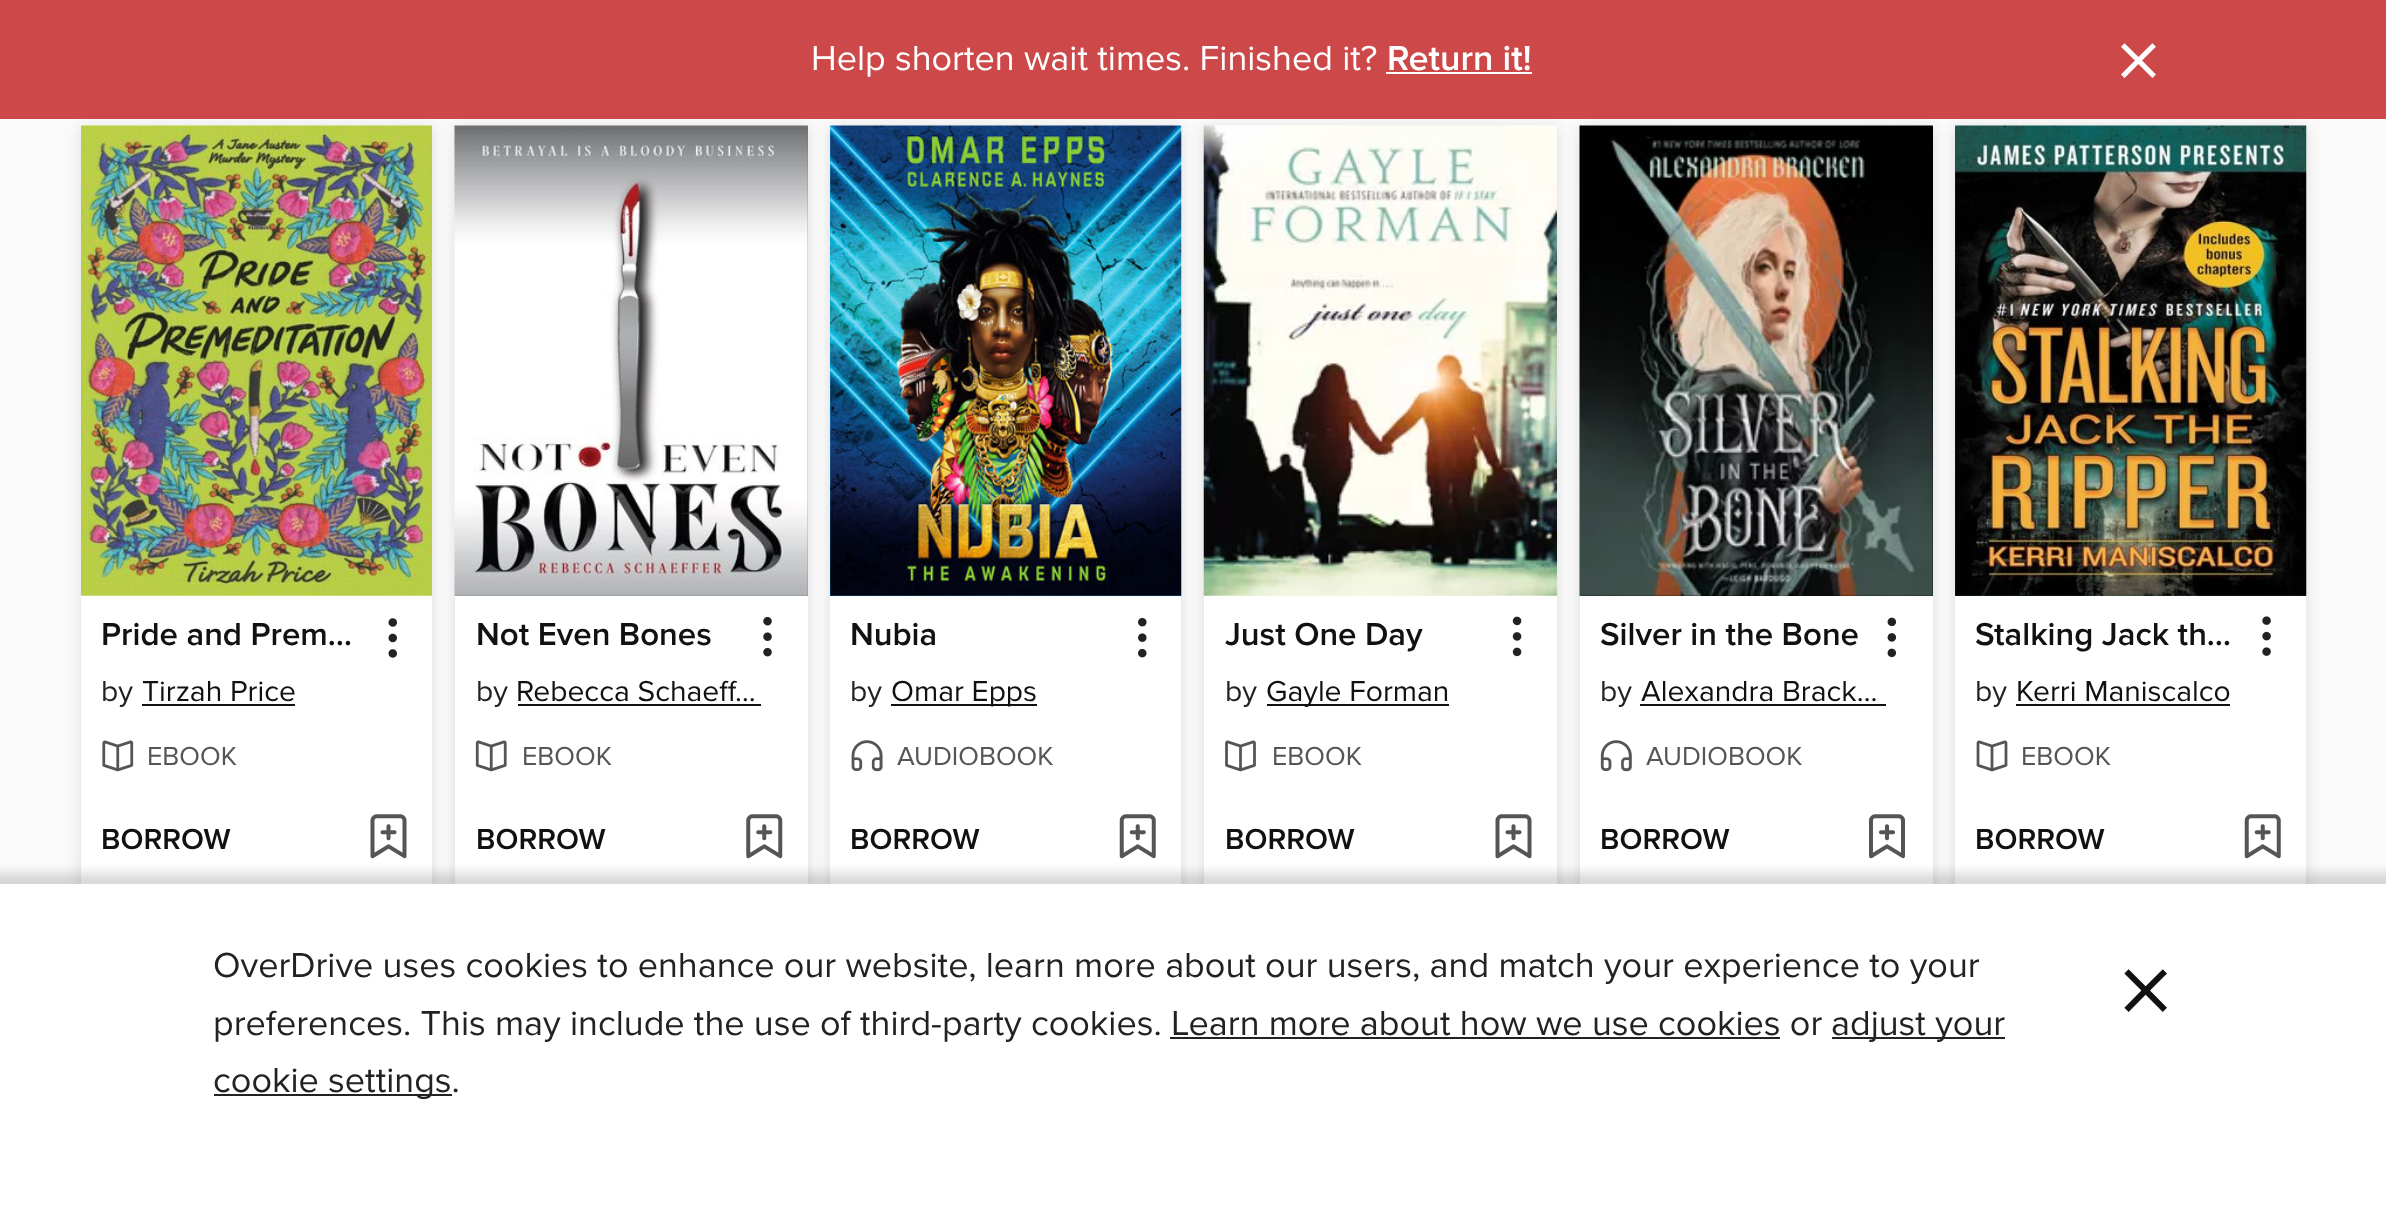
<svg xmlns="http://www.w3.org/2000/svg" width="2386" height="1209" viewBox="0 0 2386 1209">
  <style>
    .t1 { font: 36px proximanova; fill: #fff; }
    .t2 { font: 600 36px Proxima Nova; fill: #fff; }
    .t3 { font: 94px proximanova; fill: #fff; }
    .t4 { font: 600 33px Proxima Nova; fill: #111; }
    .t5 { font: 30px proximanova; fill: #222; }
    .t6 { font: 30px proximanova; fill: #111; }
    .t7 { font: 27px proximanova; fill: #555; }
    .t8 { font: 600 30px Proxima Nova; fill: #111; }
    .t9 { font: 36px proximanova; fill: #222; }
    .t10 { font: 115px proximanova; fill: #111; }
  </style>
  <rect width="100%" height="100%" fill="#fafafa"/>
  <rect x="81" y="128" width="351" height="770" fill="#ddd" filter="blur(7px)"/>
  <rect x="455" y="128" width="353" height="770" fill="#ddd" filter="blur(7px)"/>
  <rect x="830" y="128" width="351" height="770" fill="#ddd" filter="blur(7px)"/>
  <rect x="1204" y="128" width="353" height="770" fill="#ddd" filter="blur(7px)"/>
  <rect x="1580" y="128" width="353" height="770" fill="#ddd" filter="blur(7px)"/>
  <rect x="1955" y="128" width="351" height="770" fill="#ddd" filter="blur(7px)"/>
  <rect x="0" y="0" width="2386" height="119" fill="#cd4848"/>
  <text x="811" y="70" class="t1">Help shorten wait times. Finished it?</text>
  <text x="1387" y="70" class="t2">Return it!</text>
  <rect x="1386" y="72" width="146" height="2" fill="#fff"/>
  <text x="2115" y="92" class="t3">×</text>
  <rect x="81" y="595" width="351" height="289" fill="#fff"/>
  <image x="81" y="125" width="351" height="471" href="images/1.png"/>
  <text x="101" y="645" class="t4">Pride and Prem…</text>
  <image x="388" y="618" width="9" height="40" href="images/2.png"/>
  <text x="101" y="701" class="t5">by</text>
  <text x="142" y="701" class="t6">Tirzah Price</text>
  <rect x="142" y="704" width="153" height="2" fill="#111"/>
  <image x="102" y="740" width="32" height="32" href="images/3.png"/>
  <text x="147" y="765" class="t7">EBOOK</text>
  <text x="101" y="849" class="t8">BORROW</text>
  <image x="370" y="814" width="37" height="45" href="images/4.png"/>
  <rect x="455" y="596" width="353" height="288" fill="#fff"/>
  <rect x="455" y="126" width="353" height="470" fill="#707173"/>
  <image x="454" y="125" width="354" height="471" href="images/5.png"/>
  <text x="476" y="645" class="t4">Not Even Bones</text>
  <image x="763" y="616" width="9" height="41" href="images/6.png"/>
  <text x="476" y="701" class="t5">by</text>
  <text x="516" y="701" class="t6">Rebecca Schaeff…</text>
  <rect x="518" y="704" width="243" height="2" fill="#111"/>
  <image x="475" y="740" width="32" height="32" href="images/7.png"/>
  <text x="522" y="765" class="t7">EBOOK</text>
  <text x="476" y="849" class="t8">BORROW</text>
  <image x="746" y="814" width="37" height="45" href="images/8.png"/>
  <rect x="830" y="596" width="351" height="288" fill="#fff"/>
  <rect x="830" y="126" width="351" height="470" fill="#15a3e3"/>
  <image x="830" y="125" width="352" height="471" href="images/9.png"/>
  <text x="850" y="645" class="t4">Nubia</text>
  <image x="1138" y="617" width="9" height="41" href="images/10.png"/>
  <text x="850" y="701" class="t5">by</text>
  <rect x="891" y="704" width="146" height="2" fill="#111"/>
  <text x="891" y="701" class="t6">Omar Epps</text>
  <image x="851" y="740" width="32" height="32" href="images/11.png"/>
  <text x="897" y="765" class="t7">AUDIOBOOK</text>
  <text x="850" y="849" class="t8">BORROW</text>
  <image x="1119" y="814" width="37" height="45" href="images/12.png"/>
  <rect x="1204" y="595" width="353" height="289" fill="#fff"/>
  <image x="1203" y="125" width="354" height="471" href="images/13.png"/>
  <text x="1225" y="645" class="t4">Just One Day</text>
  <image x="1512" y="616" width="10" height="41" href="images/14.png"/>
  <text x="1225" y="701" class="t5">by</text>
  <rect x="1267" y="704" width="182" height="2" fill="#111"/>
  <text x="1266" y="701" class="t6">Gayle Forman</text>
  <image x="1225" y="740" width="31" height="32" href="images/15.png"/>
  <text x="1272" y="765" class="t7">EBOOK</text>
  <text x="1225" y="849" class="t8">BORROW</text>
  <image x="1495" y="814" width="37" height="45" href="images/4.png"/>
  <rect x="1580" y="596" width="353" height="288" fill="#fff"/>
  <rect x="1580" y="126" width="353" height="470" fill="#000"/>
  <image x="1579" y="125" width="354" height="471" href="images/16.png"/>
  <text x="1600" y="645" class="t4">Silver in the Bone</text>
  <image x="1887" y="617" width="10" height="41" href="images/17.png"/>
  <text x="1600" y="701" class="t5">by</text>
  <text x="1641" y="701" class="t6">Alexandra Brack…</text>
  <rect x="1640" y="704" width="246" height="2" fill="#111"/>
  <image x="1600" y="740" width="32" height="32" href="images/18.png"/>
  <text x="1646" y="765" class="t7">AUDIOBOOK</text>
  <text x="1600" y="849" class="t8">BORROW</text>
  <image x="1869" y="814" width="36" height="45" href="images/19.png"/>
  <rect x="1955" y="596" width="351" height="288" fill="#fff"/>
  <rect x="1955" y="126" width="351" height="470" fill="#1f574e"/>
  <image x="1955" y="125" width="352" height="471" href="images/20.png"/>
  <text x="1975" y="645" class="t4">Stalking Jack th…</text>
  <image x="2262" y="616" width="9" height="40" href="images/21.png"/>
  <text x="1975" y="701" class="t5">by</text>
  <text x="2016" y="701" class="t6">Kerri Maniscalco</text>
  <rect x="2016" y="704" width="214" height="2" fill="#111"/>
  <image x="1976" y="740" width="32" height="32" href="images/22.png"/>
  <text x="2021" y="765" class="t7">EBOOK</text>
  <text x="1975" y="849" class="t8">BORROW</text>
  <image x="2244" y="814" width="37" height="45" href="images/12.png"/>
  <rect x="-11" y="873" width="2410" height="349" fill="#00000026" filter="blur(5.5px)"/>
  <rect x="0" y="884" width="2386" height="325" fill="#fff"/>
  <text x="213" y="977" class="t9">OverDrive uses cookies to enhance our website, learn more about our users, and match your experience to your</text>
  <text x="213" y="1035" class="t9">preferences. This may include the use of third-party cookies. Learn more about how we use cookies or</text>
  <rect x="1170" y="1037" width="610" height="2" fill="#222"/>
  <rect x="1832" y="1037" width="173" height="2" fill="#222"/>
  <text x="1831" y="1035" class="t9">adjust your</text>
  <rect x="214" y="1094" width="238" height="2" fill="#222"/>
  <text x="213" y="1092" class="t9">cookie settings.</text>
  <text x="2117" y="1029" class="t10">×</text>
</svg>
